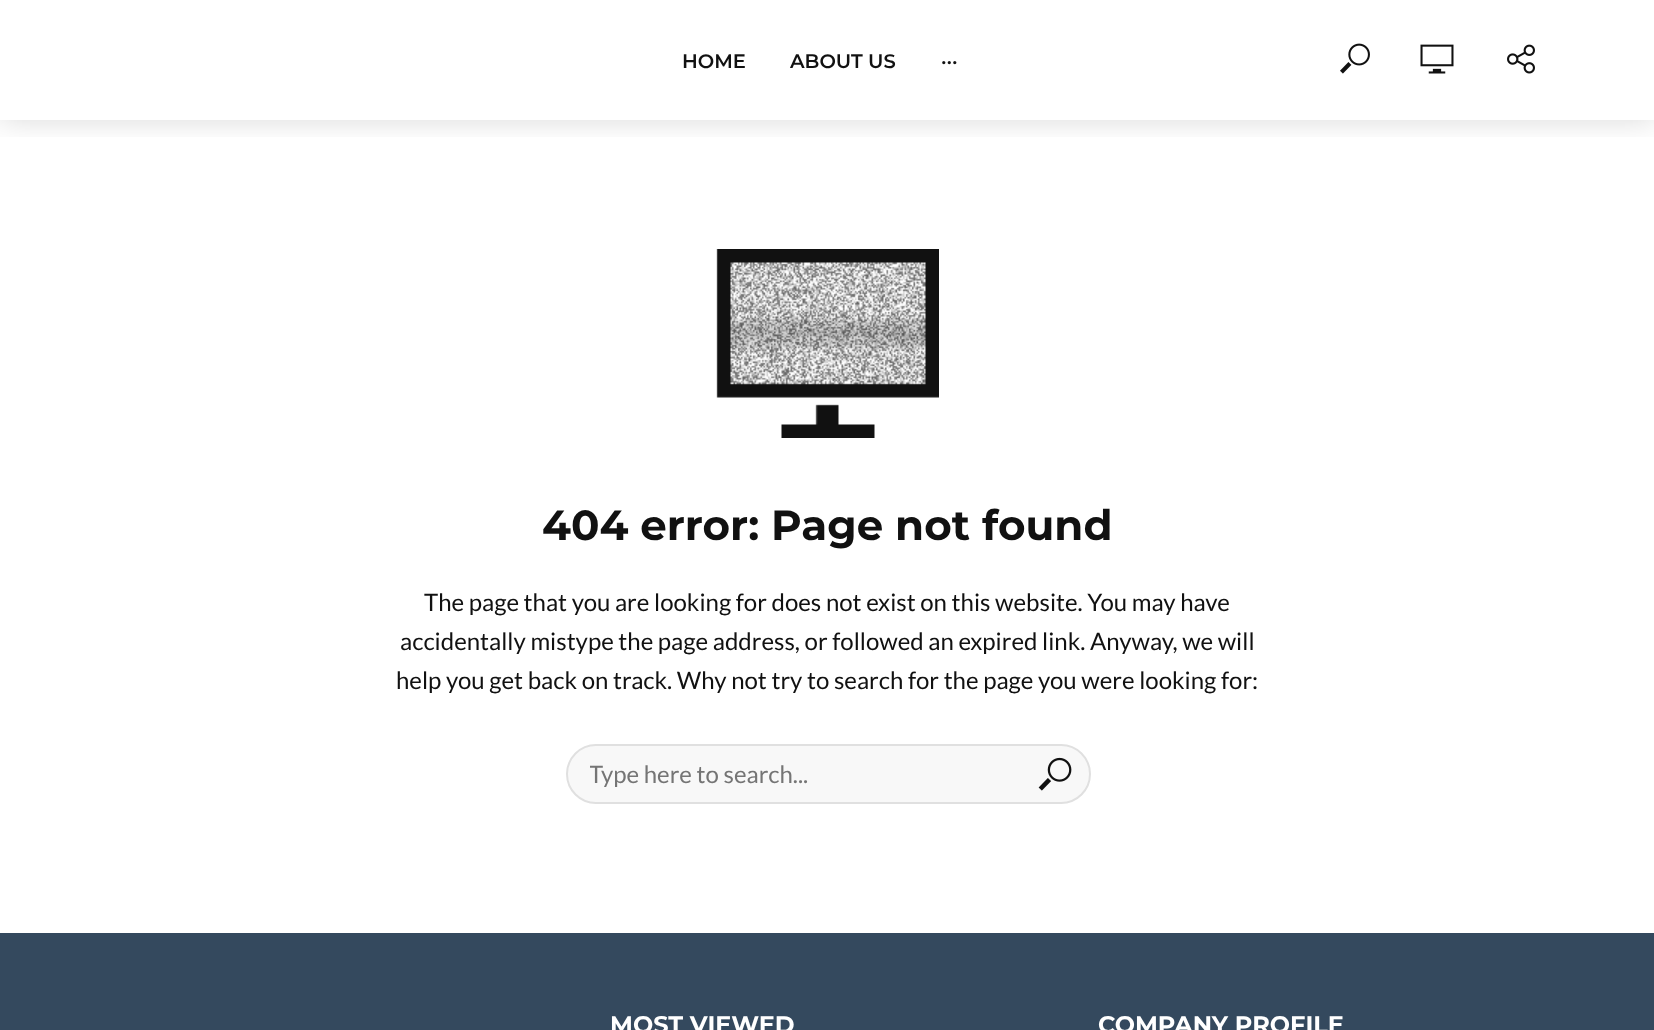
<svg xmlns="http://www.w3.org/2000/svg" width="1654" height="1030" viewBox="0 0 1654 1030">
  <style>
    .t1 { font: 600 19.5px Montserrat; fill: #111; }
    .t2 { font: bold 42px Montserrat; fill: #111; }
    .t3 { font: 24px Lato; fill: #111; }
    .t4 { font: 24px Lato; fill: #757575; }
    .t5 { font: bold 24px Montserrat; fill: #fff; }
  </style>
  <defs>
    <clipPath id="clip1"><rect x="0" y="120" width="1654" height="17"/></clipPath>
    <clipPath id="clip2"><rect x="590" y="759" width="439" height="29"/></clipPath>
  </defs>
  <rect width="100%" height="100%" fill="#fff"/>
  <g clip-path="url(#clip1)">
    <rect x="0" y="0" width="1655" height="120" fill="#00000026" filter="blur(15px)"/>
  </g>
  <text x="682" y="68" class="t1">HOME</text>
  <text x="790" y="68" class="t1">ABOUT US</text>
  <text x="941" y="68" class="t1">···</text>
  <image x="1340" y="43" width="30" height="31" href="images/1.png"/>
  <image x="1420" y="44" width="34" height="30" href="images/2.png"/>
  <image x="1507" y="44" width="28" height="30" href="images/3.png"/>
  <image x="716" y="249" width="223" height="189" href="images/4.png"/>
  <text x="542" y="540" class="t2">404 error: Page not found</text>
  <text x="424" y="611" class="t3">The page that you are looking for does not exist on this website. You may have</text>
  <text x="400" y="650" class="t3">accidentally mistype the page address, or followed an expired link. Anyway, we will</text>
  <text x="396" y="689" class="t3">help you get back on track. Why not try to search for the page you were looking for:</text>
  <rect x="566" y="744" width="525" height="60" rx="30" fill="#f8f8f8"/>
  <rect x="567" y="745" width="523" height="58" rx="29" fill="none" stroke="#1111111a" stroke-width="2"/>
  <g clip-path="url(#clip2)">
    <text x="589" y="783" class="t4">Type here to search...</text>
  </g>
  <image x="1038" y="757" width="34" height="34" href="images/5.png"/>
  <rect x="0" y="933" width="1654" height="97" fill="#34495e"/>
  <text x="610" y="1033" class="t5">MOST VIEWED</text>
  <text x="1098" y="1033" class="t5">COMPANY PROFILE</text>
</svg>
